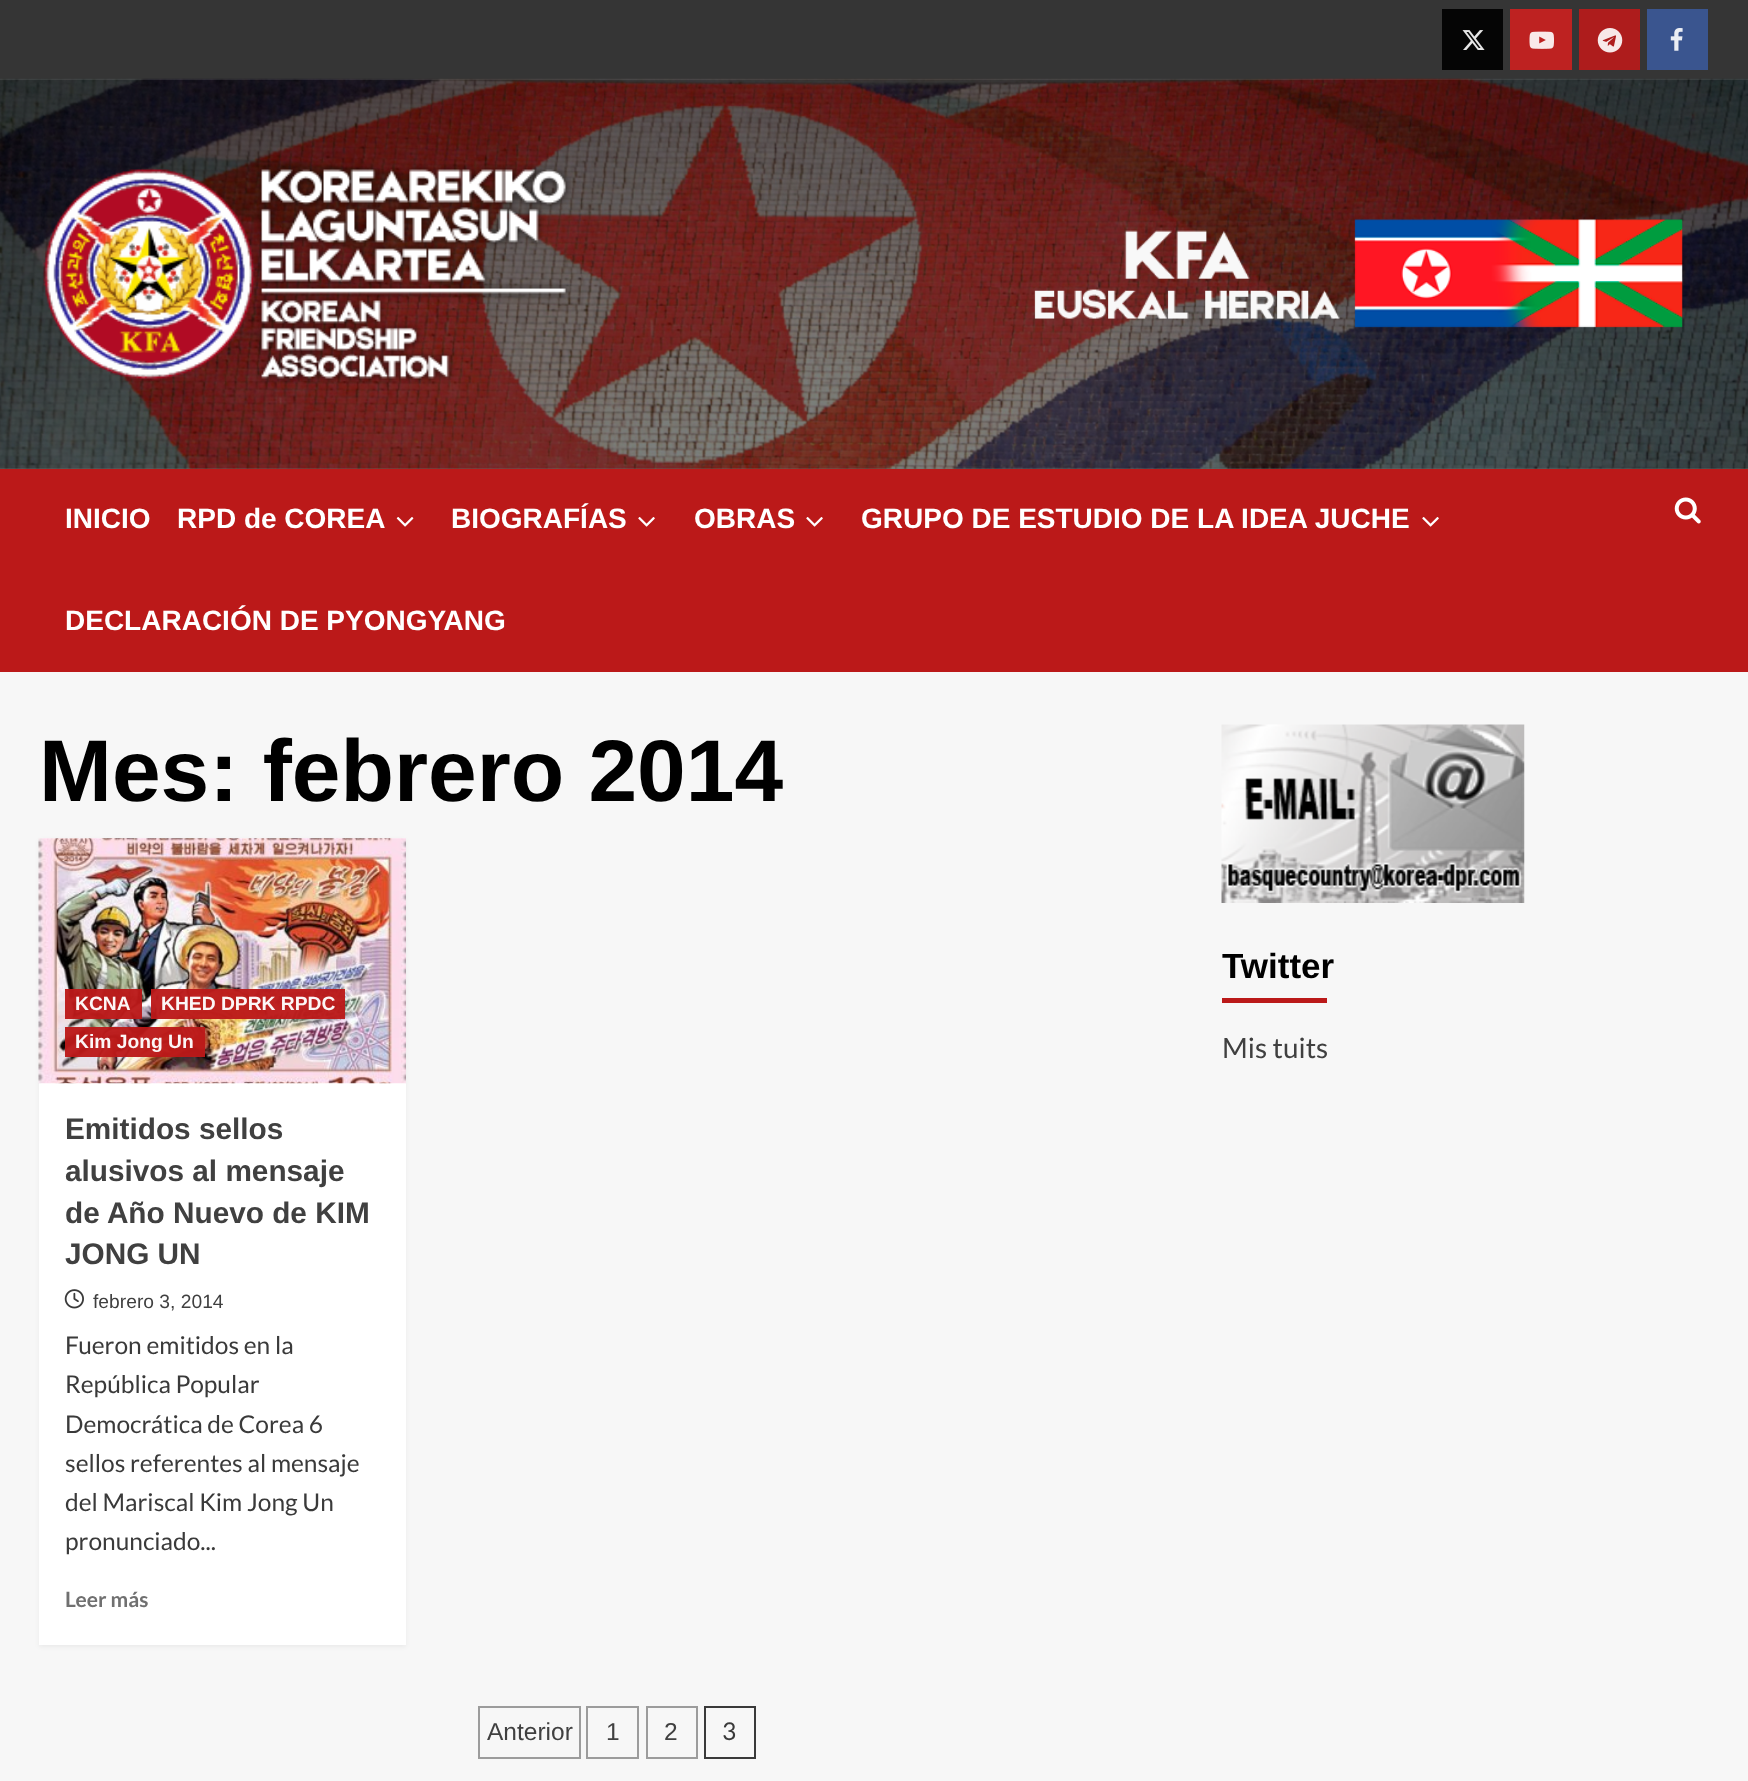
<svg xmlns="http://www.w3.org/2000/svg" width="1748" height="1781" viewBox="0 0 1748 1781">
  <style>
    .t1 { font: bold 28px Liberation Sans; fill: #fff; }
    .t2 { font: bold 87.5px Liberation Sans; fill: #000; }
    .t3 { font: bold 19.25px Liberation Sans; fill: #fcf6f6; }
    .t4 { font: bold 29.75px Liberation Sans; fill: #404040; }
    .t5 { font: 19.25px Liberation Sans; fill: #404040; }
    .t6 { font: 24.5px Lato; fill: #3a3a3a; }
    .t7 { font: bold 21px Lato; fill: #707070; }
    .t8 { font: 24.5px Liberation Sans; fill: #404040; }
    .t9 { font: bold 35px Liberation Sans; fill: #000; }
    .t10 { font: 28px Lato; fill: #404040; }
  </style>
  <rect width="100%" height="100%" fill="#f7f7f7"/>
  <rect x="0" y="0" width="1748" height="79" fill="#353535"/>
  <rect x="1442" y="9" width="61" height="61" fill="#050505"/>
  <image x="1462" y="30" width="23" height="20" href="images/1.png"/>
  <rect x="1510" y="9" width="62" height="61" fill="#be2221"/>
  <image x="1529" y="31" width="25" height="18" href="images/2.png"/>
  <rect x="1579" y="9" width="61" height="61" fill="#ae1c1c"/>
  <image x="1597" y="28" width="26" height="25" href="images/3.png"/>
  <rect x="1647" y="9" width="61" height="61" fill="#3a558f"/>
  <image x="1670" y="28" width="13" height="23" href="images/4.png"/>
  <image x="0" y="78" width="1748" height="391" href="images/5.png"/>
  <image x="43" y="164" width="528" height="220" href="images/6.png"/>
  <image x="1034" y="219" width="649" height="109" href="images/7.png"/>
  <rect x="0" y="469" width="1748" height="203" fill="#bb1919"/>
  <text x="65" y="528" class="t1">INICIO</text>
  <text x="177" y="528" class="t1">RPD de COREA</text>
  <image x="396" y="517" width="18" height="10" href="images/8.png"/>
  <text x="451" y="528" class="t1">BIOGRAFÍAS</text>
  <image x="638" y="517" width="17" height="10" href="images/9.png"/>
  <text x="694" y="528" class="t1">OBRAS</text>
  <image x="806" y="517" width="17" height="10" href="images/9.png"/>
  <text x="861" y="528" class="t1">GRUPO DE ESTUDIO DE LA IDEA JUCHE</text>
  <image x="1422" y="517" width="17" height="10" href="images/9.png"/>
  <text x="65" y="630" class="t1">DECLARACIÓN DE PYONGYANG</text>
  <image x="1674" y="497" width="27" height="27" href="images/10.png"/>
  <text x="39" y="801" class="t2">Mes: febrero 2014</text>
  <rect x="39" y="840" width="367" height="807" fill="#0000000d" filter="blur(2px)"/>
  <rect x="39" y="838" width="367" height="807" fill="#fff"/>
  <image x="38" y="838" width="368" height="246" href="images/11.png"/>
  <rect x="65" y="989" width="77" height="30" fill="#bb1919f5"/>
  <text x="75" y="1010" class="t3">KCNA</text>
  <rect x="151" y="989" width="194" height="30" fill="#bb1919f5"/>
  <text x="161" y="1010" class="t3">KHED DPRK RPDC</text>
  <rect x="65" y="1027" width="140" height="30" fill="#bb1919f5"/>
  <text x="75" y="1048" class="t3">Kim Jong Un</text>
  <text x="65" y="1139" class="t4">Emitidos sellos</text>
  <text x="65" y="1181" class="t4">alusivos al mensaje</text>
  <text x="65" y="1223" class="t4">de Año Nuevo de KIM</text>
  <text x="65" y="1264" class="t4">JONG UN</text>
  <image x="64" y="1289" width="20" height="20" href="images/12.png"/>
  <text x="93" y="1308" class="t5">febrero 3, 2014</text>
  <text x="65" y="1354" class="t6">Fueron emitidos en la</text>
  <text x="65" y="1393" class="t6">República Popular</text>
  <text x="65" y="1433" class="t6">Democrática de Corea 6</text>
  <text x="65" y="1472" class="t6">sellos referentes al mensaje</text>
  <text x="65" y="1511" class="t6">del Mariscal Kim Jong Un</text>
  <text x="65" y="1550" class="t6">pronunciado...</text>
  <text x="65" y="1607" class="t7">Leer más</text>
  <rect x="479" y="1707" width="101" height="51" fill="none" stroke="#9c9c9c" stroke-width="2"/>
  <text x="487" y="1740" class="t8">Anterior</text>
  <rect x="587" y="1707" width="51" height="51" fill="none" stroke="#9c9c9c" stroke-width="2"/>
  <text x="606" y="1740" class="t8">1</text>
  <rect x="647" y="1707" width="50" height="51" fill="none" stroke="#9c9c9c" stroke-width="2"/>
  <text x="664" y="1740" class="t8">2</text>
  <rect x="705" y="1707" width="50" height="51" fill="none" stroke="#3a3a3a" stroke-width="2"/>
  <text x="722" y="1740" class="t6">3</text>
  <image x="1221" y="724" width="304" height="179" href="images/13.png"/>
  <text x="1222" y="978" class="t9">Twitter</text>
  <rect x="1222" y="998" width="105" height="5" fill="#bb1919"/>
  <text x="1222" y="1058" class="t10">Mis tuits</text>
</svg>
